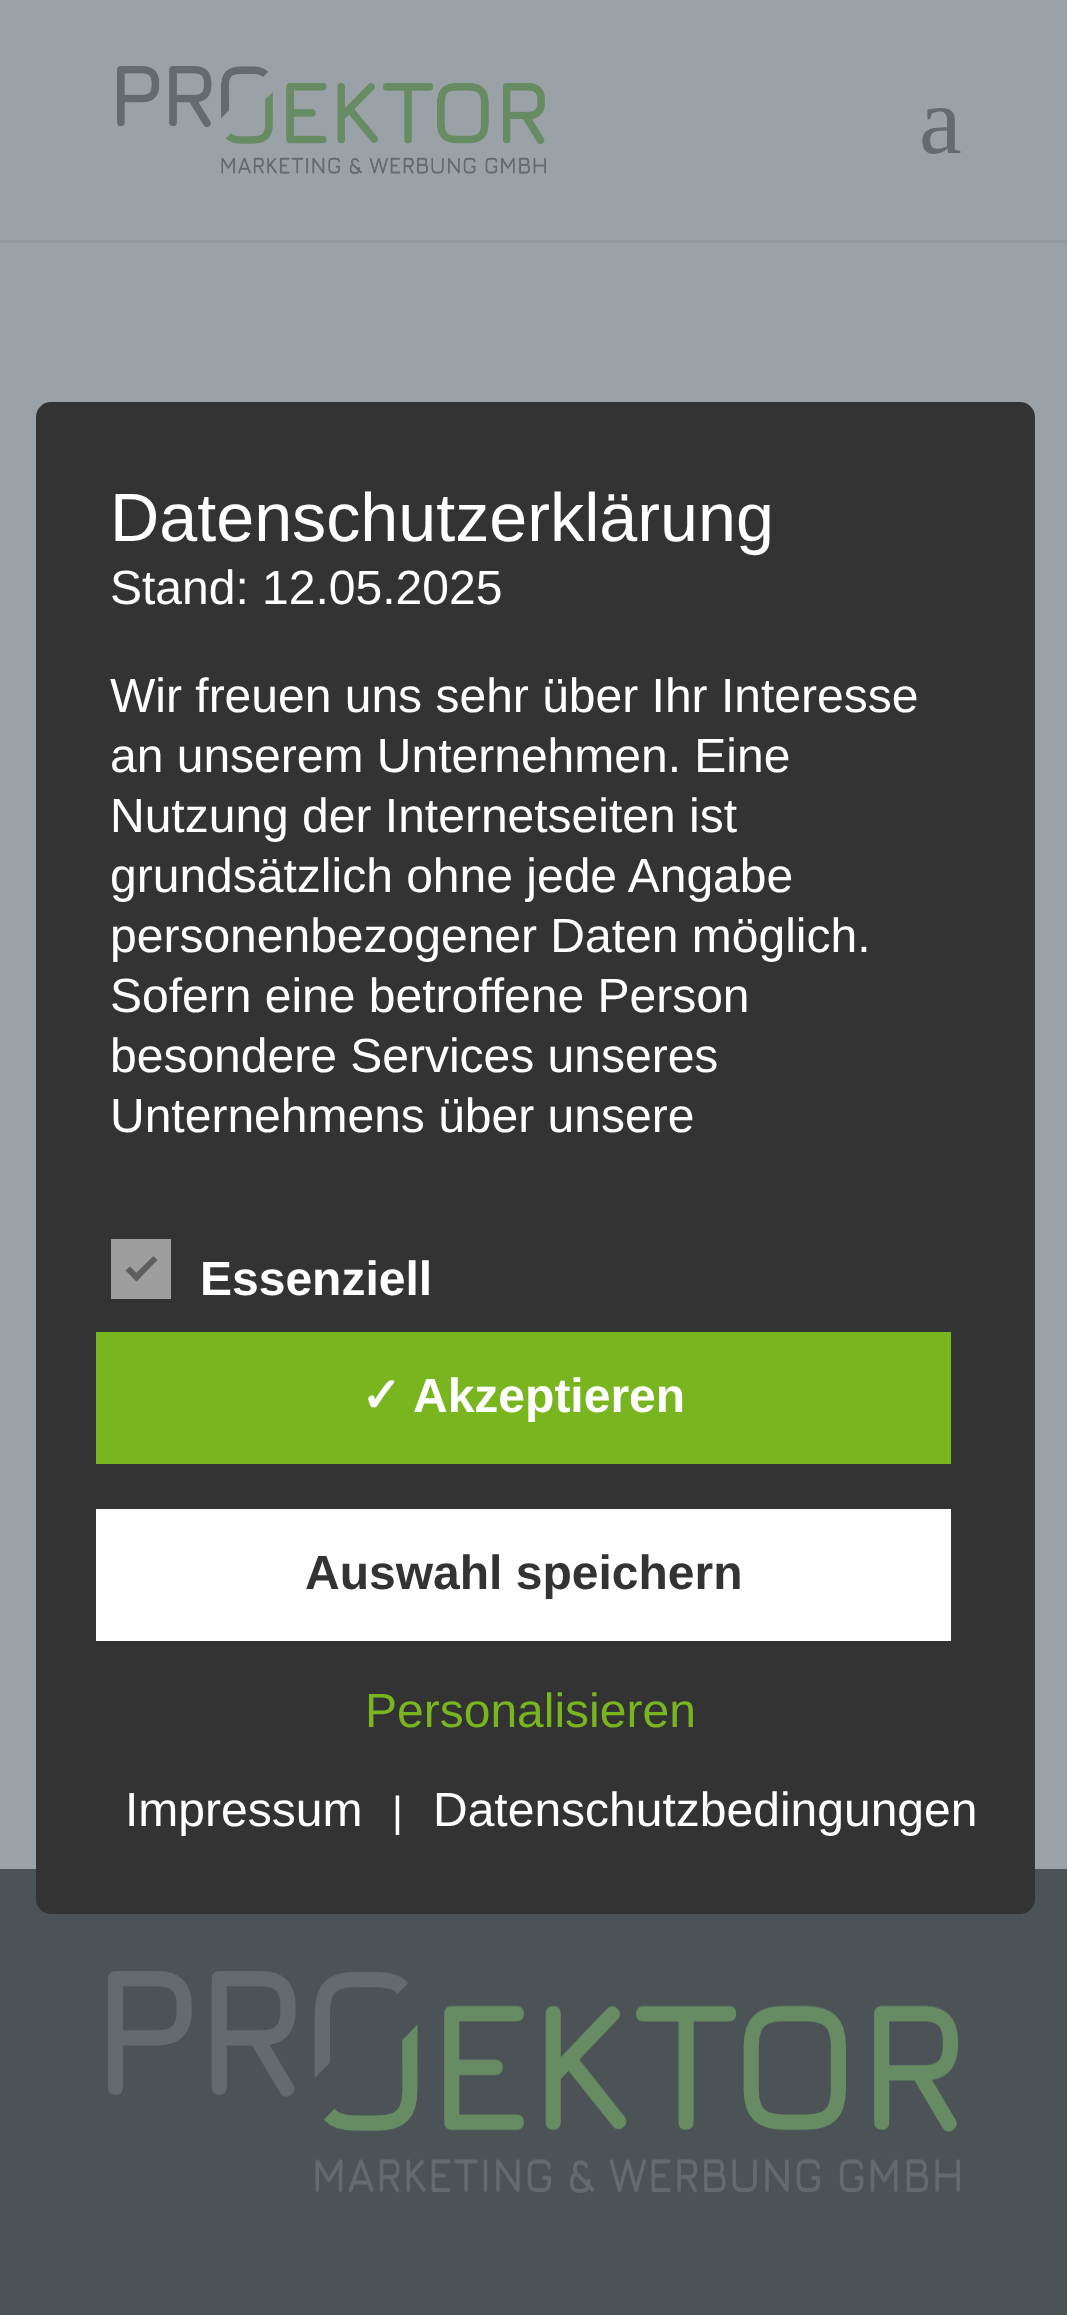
<svg xmlns="http://www.w3.org/2000/svg" width="1067" height="2315" viewBox="0 0 1067 2315">
  <style>
    .t1 { font: 96px Liberation Serif; fill: #636b70; }
    .t2 { font: 68.25px Liberation Sans; fill: #fff; }
    .t3 { font: 48px Liberation Sans; fill: #fff; }
    .t4 { font: bold 48px Liberation Sans; fill: #fff; }
    .t5 { font: bold 48px DejaVu Sans; fill: #fff; }
    .t6 { font: bold 48px Liberation Sans; fill: #333; }
    .t7 { font: 48px Liberation Sans; fill: #79b51f; }
    .t8 { font: 42px Liberation Sans; fill: #fff; }
  </style>
  <rect width="100%" height="100%" fill="#9ba2a7"/>
  <rect x="0" y="240" width="1067" height="3" fill="#92999e"/>
  <image x="117" y="66" width="429" height="108" href="images/1.png"/>
  <text x="919" y="153" class="t1">a</text>
  <rect x="0" y="1869" width="1067" height="446" fill="#4b5357"/>
  <image x="108" y="1971" width="852" height="222" href="images/2.png"/>
  <rect x="36" y="402" width="999" height="1512" rx="15" fill="#333"/>
  <text x="110" y="541" class="t2">Datenschutzerklärung</text>
  <text x="110" y="604" class="t3">Stand: 12.05.2025</text>
  <text x="110" y="712" class="t3">Wir freuen uns sehr über Ihr Interesse</text>
  <text x="110" y="772" class="t3">an unserem Unternehmen. Eine</text>
  <text x="110" y="832" class="t3">Nutzung der Internetseiten ist</text>
  <text x="110" y="892" class="t3">grundsätzlich ohne jede Angabe</text>
  <text x="110" y="952" class="t3">personenbezogener Daten möglich.</text>
  <text x="110" y="1012" class="t3">Sofern eine betroffene Person</text>
  <text x="110" y="1072" class="t3">besondere Services unseres</text>
  <text x="110" y="1132" class="t3">Unternehmens über unsere</text>
  <rect x="111" y="1239" width="60" height="60" fill="#9e9e9e"/>
  <path d="M153.5 1256L157.5 1260L136.5 1281.5L132 1277Z" fill="#5e5e5e"/>
  <path d="M130 1266.5L140.5 1277L136.5 1281.5L125.5 1270.5Z" fill="#5e5e5e"/>
  <text x="200" y="1295" class="t4">Essenziell</text>
  <rect x="96" y="1332" width="855" height="132" fill="#79b51f"/>
  <text x="361" y="1412" class="t5">✓</text>
  <text x="413" y="1412" class="t4">Akzeptieren</text>
  <rect x="96" y="1509" width="855" height="132" fill="#fff"/>
  <text x="305" y="1589" class="t6">Auswahl speichern</text>
  <text x="365" y="1727" class="t7">Personalisieren</text>
  <text x="125" y="1826" class="t3">Impressum</text>
  <text x="392" y="1826" class="t8">|</text>
  <text x="433" y="1826" class="t3">Datenschutzbedingungen</text>
</svg>
